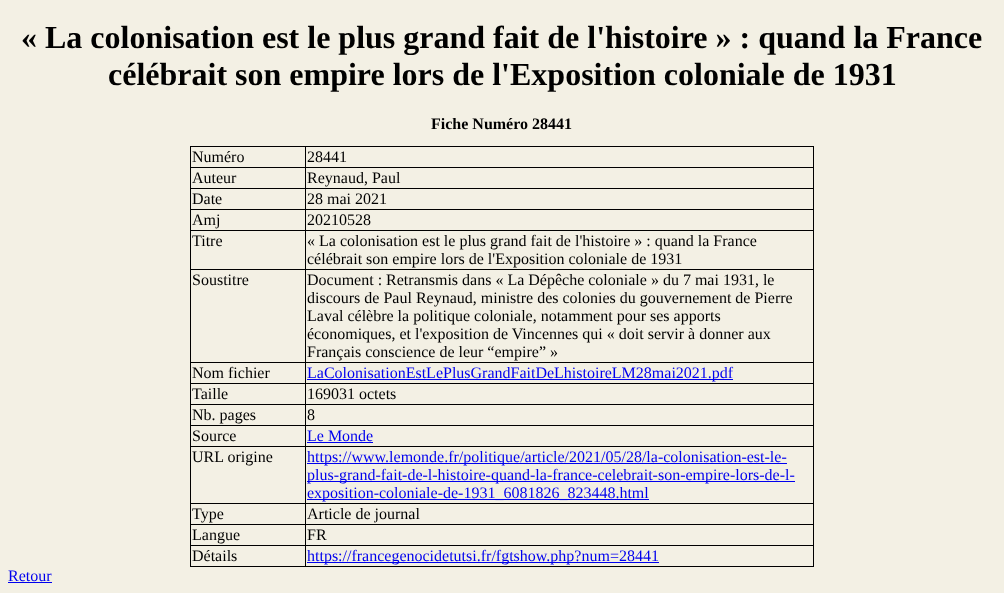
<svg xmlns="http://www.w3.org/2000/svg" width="1004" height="593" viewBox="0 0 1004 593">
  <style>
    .t1 { font: bold 32px Liberation Serif; fill: #000; }
    .t2 { font: bold 16px Liberation Serif; fill: #000; }
    .t3 { font: 16px Liberation Serif; fill: #000; }
    .t4 { font: 16px Liberation Serif; fill: #00e; }
  </style>
  <rect width="100%" height="100%" fill="#f3f0e4"/>
  <text x="21" y="48" class="t1">« La colonisation est le plus grand fait de l'histoire » : quand la France</text>
  <text x="108" y="85" class="t1">célébrait son empire lors de l'Exposition coloniale de 1931</text>
  <text x="431" y="129" class="t2">Fiche Numéro 28441</text>
  <rect x="190.5" y="146.5" width="623" height="21" fill="none" stroke="#000"/>
  <rect x="305" y="147" width="1" height="20" fill="#000"/>
  <text x="192" y="162" class="t3">Numéro</text>
  <text x="307" y="162" class="t3">28441</text>
  <rect x="813" y="168" width="1" height="399" fill="#000"/>
  <rect x="190" y="188" width="624" height="1" fill="#000"/>
  <rect x="190" y="168" width="1" height="21" fill="#000"/>
  <rect x="305" y="168" width="1" height="20" fill="#000"/>
  <text x="192" y="183" class="t3">Auteur</text>
  <text x="307" y="183" class="t3">Reynaud, Paul</text>
  <rect x="190" y="209" width="624" height="1" fill="#000"/>
  <rect x="190" y="189" width="1" height="21" fill="#000"/>
  <rect x="305" y="189" width="1" height="20" fill="#000"/>
  <text x="192" y="204" class="t3">Date</text>
  <text x="307" y="204" class="t3">28 mai 2021</text>
  <rect x="190" y="230" width="624" height="1" fill="#000"/>
  <rect x="190" y="210" width="1" height="21" fill="#000"/>
  <rect x="305" y="210" width="1" height="20" fill="#000"/>
  <text x="192" y="225" class="t3">Amj</text>
  <text x="307" y="225" class="t3">20210528</text>
  <rect x="190" y="269" width="624" height="1" fill="#000"/>
  <rect x="190" y="231" width="1" height="39" fill="#000"/>
  <rect x="305" y="231" width="1" height="38" fill="#000"/>
  <text x="192" y="246" class="t3">Titre</text>
  <text x="307" y="246" class="t3">« La colonisation est le plus grand fait de l'histoire » : quand la France</text>
  <text x="307" y="264" class="t3">célébrait son empire lors de l'Exposition coloniale de 1931</text>
  <rect x="190" y="362" width="624" height="1" fill="#000"/>
  <rect x="190" y="270" width="1" height="93" fill="#000"/>
  <rect x="305" y="270" width="1" height="92" fill="#000"/>
  <text x="192" y="285" class="t3">Soustitre</text>
  <text x="307" y="285" class="t3">Document : Retransmis dans « La Dépêche coloniale » du 7 mai 1931, le</text>
  <text x="307" y="303" class="t3">discours de Paul Reynaud, ministre des colonies du gouvernement de Pierre</text>
  <text x="307" y="321" class="t3">Laval célèbre la politique coloniale, notamment pour ses apports</text>
  <text x="307" y="339" class="t3">économiques, et l'exposition de Vincennes qui « doit servir à donner aux</text>
  <text x="307" y="357" class="t3">Français conscience de leur “empire” »</text>
  <rect x="190" y="383" width="624" height="1" fill="#000"/>
  <rect x="190" y="363" width="1" height="21" fill="#000"/>
  <rect x="305" y="363" width="1" height="20" fill="#000"/>
  <text x="192" y="378" class="t3">Nom fichier</text>
  <rect x="307" y="379" width="426" height="1" fill="#00e"/>
  <text x="307" y="378" class="t4">LaColonisationEstLePlusGrandFaitDeLhistoireLM28mai2021.pdf</text>
  <rect x="190" y="404" width="624" height="1" fill="#000"/>
  <rect x="190" y="384" width="1" height="21" fill="#000"/>
  <rect x="305" y="384" width="1" height="20" fill="#000"/>
  <text x="192" y="399" class="t3">Taille</text>
  <text x="307" y="399" class="t3">169031 octets</text>
  <rect x="190" y="425" width="624" height="1" fill="#000"/>
  <rect x="190" y="405" width="1" height="21" fill="#000"/>
  <rect x="305" y="405" width="1" height="20" fill="#000"/>
  <text x="192" y="420" class="t3">Nb. pages</text>
  <text x="307" y="420" class="t3">8</text>
  <rect x="190" y="446" width="624" height="1" fill="#000"/>
  <rect x="190" y="426" width="1" height="21" fill="#000"/>
  <rect x="305" y="426" width="1" height="20" fill="#000"/>
  <text x="192" y="441" class="t3">Source</text>
  <text x="307" y="441" class="t4">Le Monde</text>
  <rect x="307" y="442" width="66" height="1" fill="#00e"/>
  <rect x="190" y="503" width="624" height="1" fill="#000"/>
  <rect x="190" y="447" width="1" height="57" fill="#000"/>
  <rect x="305" y="447" width="1" height="56" fill="#000"/>
  <text x="192" y="462" class="t3">URL origine</text>
  <rect x="307" y="463" width="480" height="1" fill="#00e"/>
  <text x="307" y="462" class="t4">https://www.lemonde.fr/politique/article/2021/05/28/la-colonisation-est-le-</text>
  <rect x="307" y="481" width="488" height="1" fill="#00e"/>
  <text x="307" y="480" class="t4">plus-grand-fait-de-l-histoire-quand-la-france-celebrait-son-empire-lors-de-l-</text>
  <rect x="307" y="499" width="342" height="1" fill="#00e"/>
  <text x="307" y="498" class="t4">exposition-coloniale-de-1931_6081826_823448.html</text>
  <rect x="190" y="524" width="624" height="1" fill="#000"/>
  <rect x="190" y="504" width="1" height="21" fill="#000"/>
  <rect x="305" y="504" width="1" height="20" fill="#000"/>
  <text x="192" y="519" class="t3">Type</text>
  <text x="307" y="519" class="t3">Article de journal</text>
  <rect x="190" y="545" width="624" height="1" fill="#000"/>
  <rect x="190" y="525" width="1" height="21" fill="#000"/>
  <rect x="305" y="525" width="1" height="20" fill="#000"/>
  <text x="192" y="540" class="t3">Langue</text>
  <text x="307" y="540" class="t3">FR</text>
  <rect x="190" y="566" width="624" height="1" fill="#000"/>
  <rect x="190" y="546" width="1" height="21" fill="#000"/>
  <rect x="305" y="546" width="1" height="20" fill="#000"/>
  <text x="192" y="561" class="t3">Détails</text>
  <rect x="307" y="562" width="352" height="1" fill="#00e"/>
  <text x="307" y="561" class="t4">https://francegenocidetutsi.fr/fgtshow.php?num=28441</text>
  <text x="8" y="581" class="t4">Retour</text>
  <rect x="8" y="582" width="44" height="1" fill="#00e"/>
</svg>
